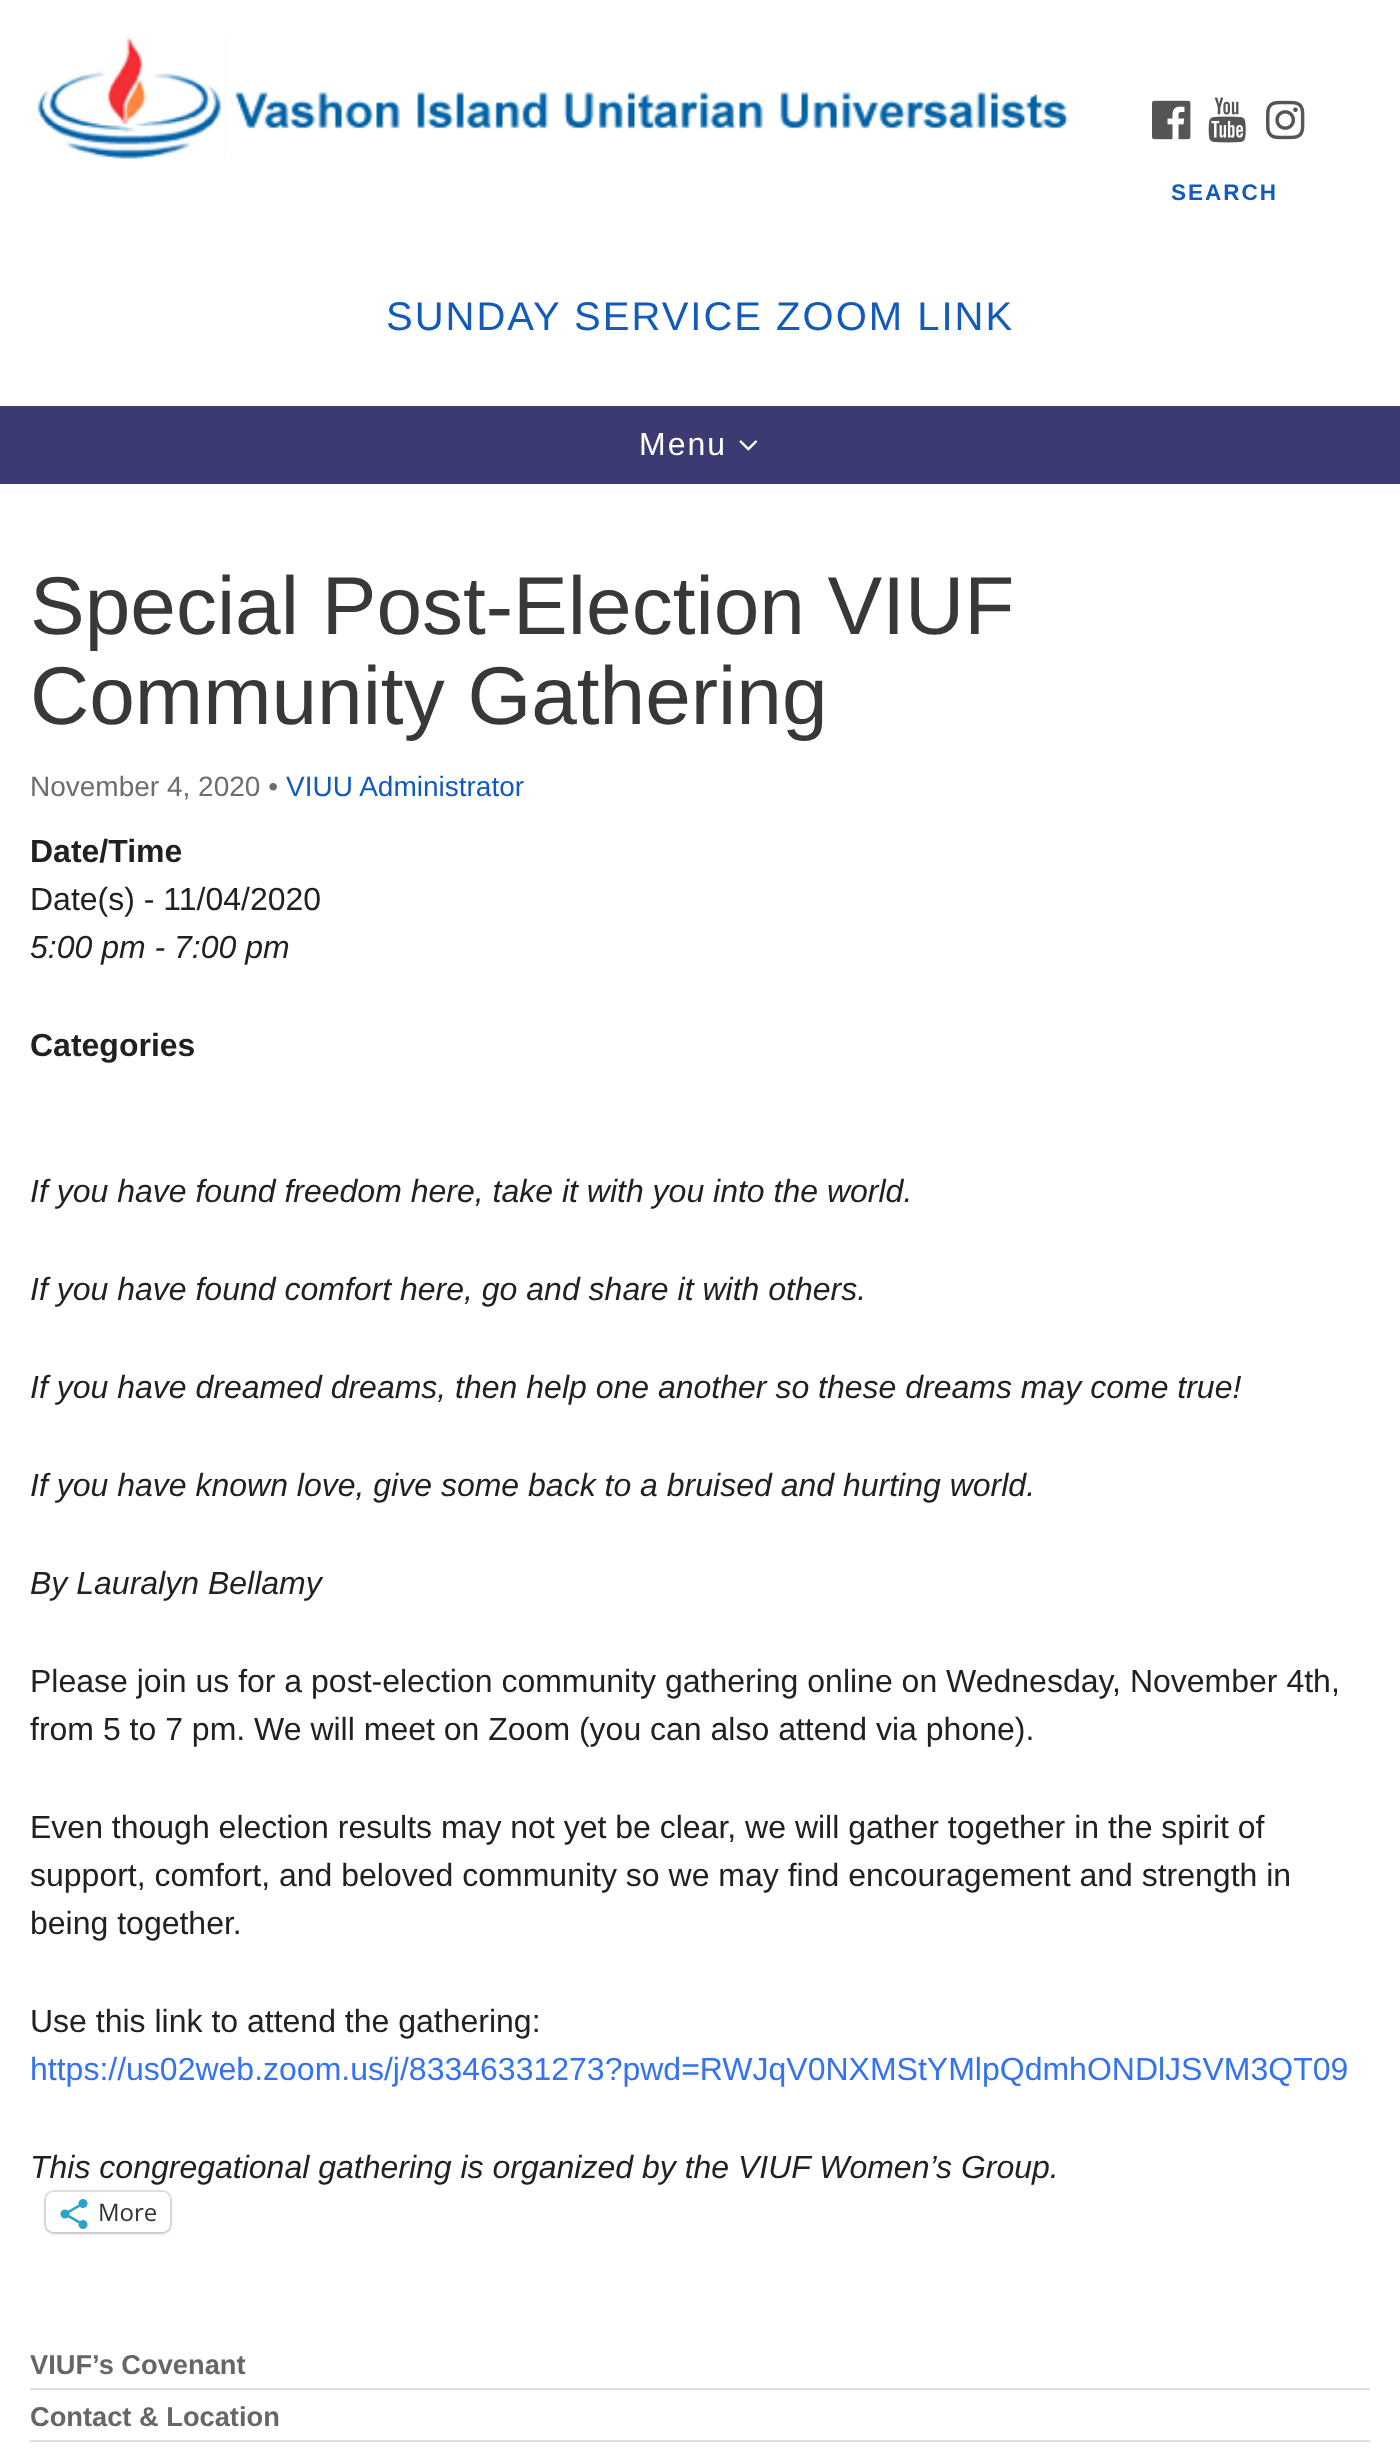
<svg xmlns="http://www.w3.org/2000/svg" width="1400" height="2453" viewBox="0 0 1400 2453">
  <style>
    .t1 { font: bold 22.5px Liberation Sans; letter-spacing: 2px; fill: #125abb; }
    .t2 { font: 40px Liberation Sans; letter-spacing: 2px; fill: #125abb; }
    .t3 { font: 32px Liberation Sans; letter-spacing: 2px; fill: #fff; }
    .t4 { font: 82px Liberation Sans; fill: #373839; }
    .t5 { font: 28px Liberation Sans; fill: #6c6d6f; }
    .t6 { font: 28px Liberation Sans; fill: #125abb; }
    .t7 { font: bold 32px Liberation Sans; fill: #212121; }
    .t8 { font: 32px Liberation Sans; fill: #212121; }
    .t9 { font: italic 32px Liberation Sans; fill: #212121; }
    .t10 { font: 32px Liberation Sans; fill: #3372f0; }
    .t11 { font: 24px Open Sans; fill: #2c3338; }
    .t12 { font: bold 27.25px Liberation Sans; fill: #666; }
  </style>
  <rect width="100%" height="100%" fill="#fff"/>
  <image x="37" y="36" width="1032" height="123" href="images/1.png"/>
  <image x="1152" y="100" width="39" height="40" href="images/2.png"/>
  <image x="1208" y="97" width="38" height="46" href="images/3.png"/>
  <image x="1266" y="100" width="39" height="40" href="images/4.png"/>
  <text x="1171" y="200" class="t1">SEARCH</text>
  <text x="386" y="330" class="t2">SUNDAY SERVICE ZOOM LINK</text>
  <rect x="0" y="406" width="1400" height="78" fill="#3c3a73"/>
  <text x="639" y="455" class="t3">Menu</text>
  <image x="739" y="440" width="19" height="11" href="images/5.png"/>
  <text x="30" y="634" class="t4">Special Post-Election VIUF</text>
  <text x="30" y="724" class="t4">Community Gathering</text>
  <text x="30" y="796" class="t5">November 4, 2020 •</text>
  <text x="286" y="796" class="t6">VIUU Administrator</text>
  <text x="30" y="862" class="t7">Date/Time</text>
  <text x="30" y="910" class="t8">Date(s) - 11/04/2020</text>
  <text x="30" y="958" class="t9">5:00 pm - 7:00 pm</text>
  <text x="30" y="1056" class="t7">Categories</text>
  <text x="30" y="1202" class="t9">If you have found freedom here, take it with you into the world.</text>
  <text x="30" y="1300" class="t9">If you have found comfort here, go and share it with others.</text>
  <text x="30" y="1398" class="t9">If you have dreamed dreams, then help one another so these dreams may come true!</text>
  <text x="30" y="1496" class="t9">If you have known love, give some back to a bruised and hurting world.</text>
  <text x="30" y="1594" class="t9">By Lauralyn Bellamy</text>
  <text x="30" y="1692" class="t8">Please join us for a post-election community gathering online on Wednesday, November 4th,</text>
  <text x="30" y="1740" class="t8">from 5 to 7 pm. We will meet on Zoom (you can also attend via phone).</text>
  <text x="30" y="1838" class="t8">Even though election results may not yet be clear, we will gather together in the spirit of</text>
  <text x="30" y="1886" class="t8">support, comfort, and beloved community so we may find encouragement and strength in</text>
  <text x="30" y="1934" class="t8">being together.</text>
  <text x="30" y="2032" class="t8">Use this link to attend the gathering:</text>
  <text x="30" y="2080" class="t10">https://us02web.zoom.us/j/83346331273?pwd=RWJqV0NXMStYMlpQdmhONDlJSVM3QT09</text>
  <text x="30" y="2178" class="t9">This congregational gathering is organized by the VIUF Women’s Group.</text>
  <rect x="45" y="2191" width="126" height="42" rx="9" fill="none" stroke="#e0e0e0" stroke-width="2"/>
  <rect x="46" y="2194" width="124" height="40" rx="8" fill="#0000001f" filter="blur(2px)"/>
  <rect x="46" y="2192" width="124" height="40" rx="8" fill="#fff"/>
  <image x="60" y="2199" width="28" height="30" href="images/6.png"/>
  <text x="98" y="2221" class="t11">More</text>
  <rect x="30" y="2388" width="1340" height="2" fill="#ddd"/>
  <text x="30" y="2374" class="t12">VIUF’s Covenant</text>
  <rect x="30" y="2440" width="1340" height="2" fill="#ddd"/>
  <text x="30" y="2426" class="t12">Contact &amp; Location</text>
</svg>
